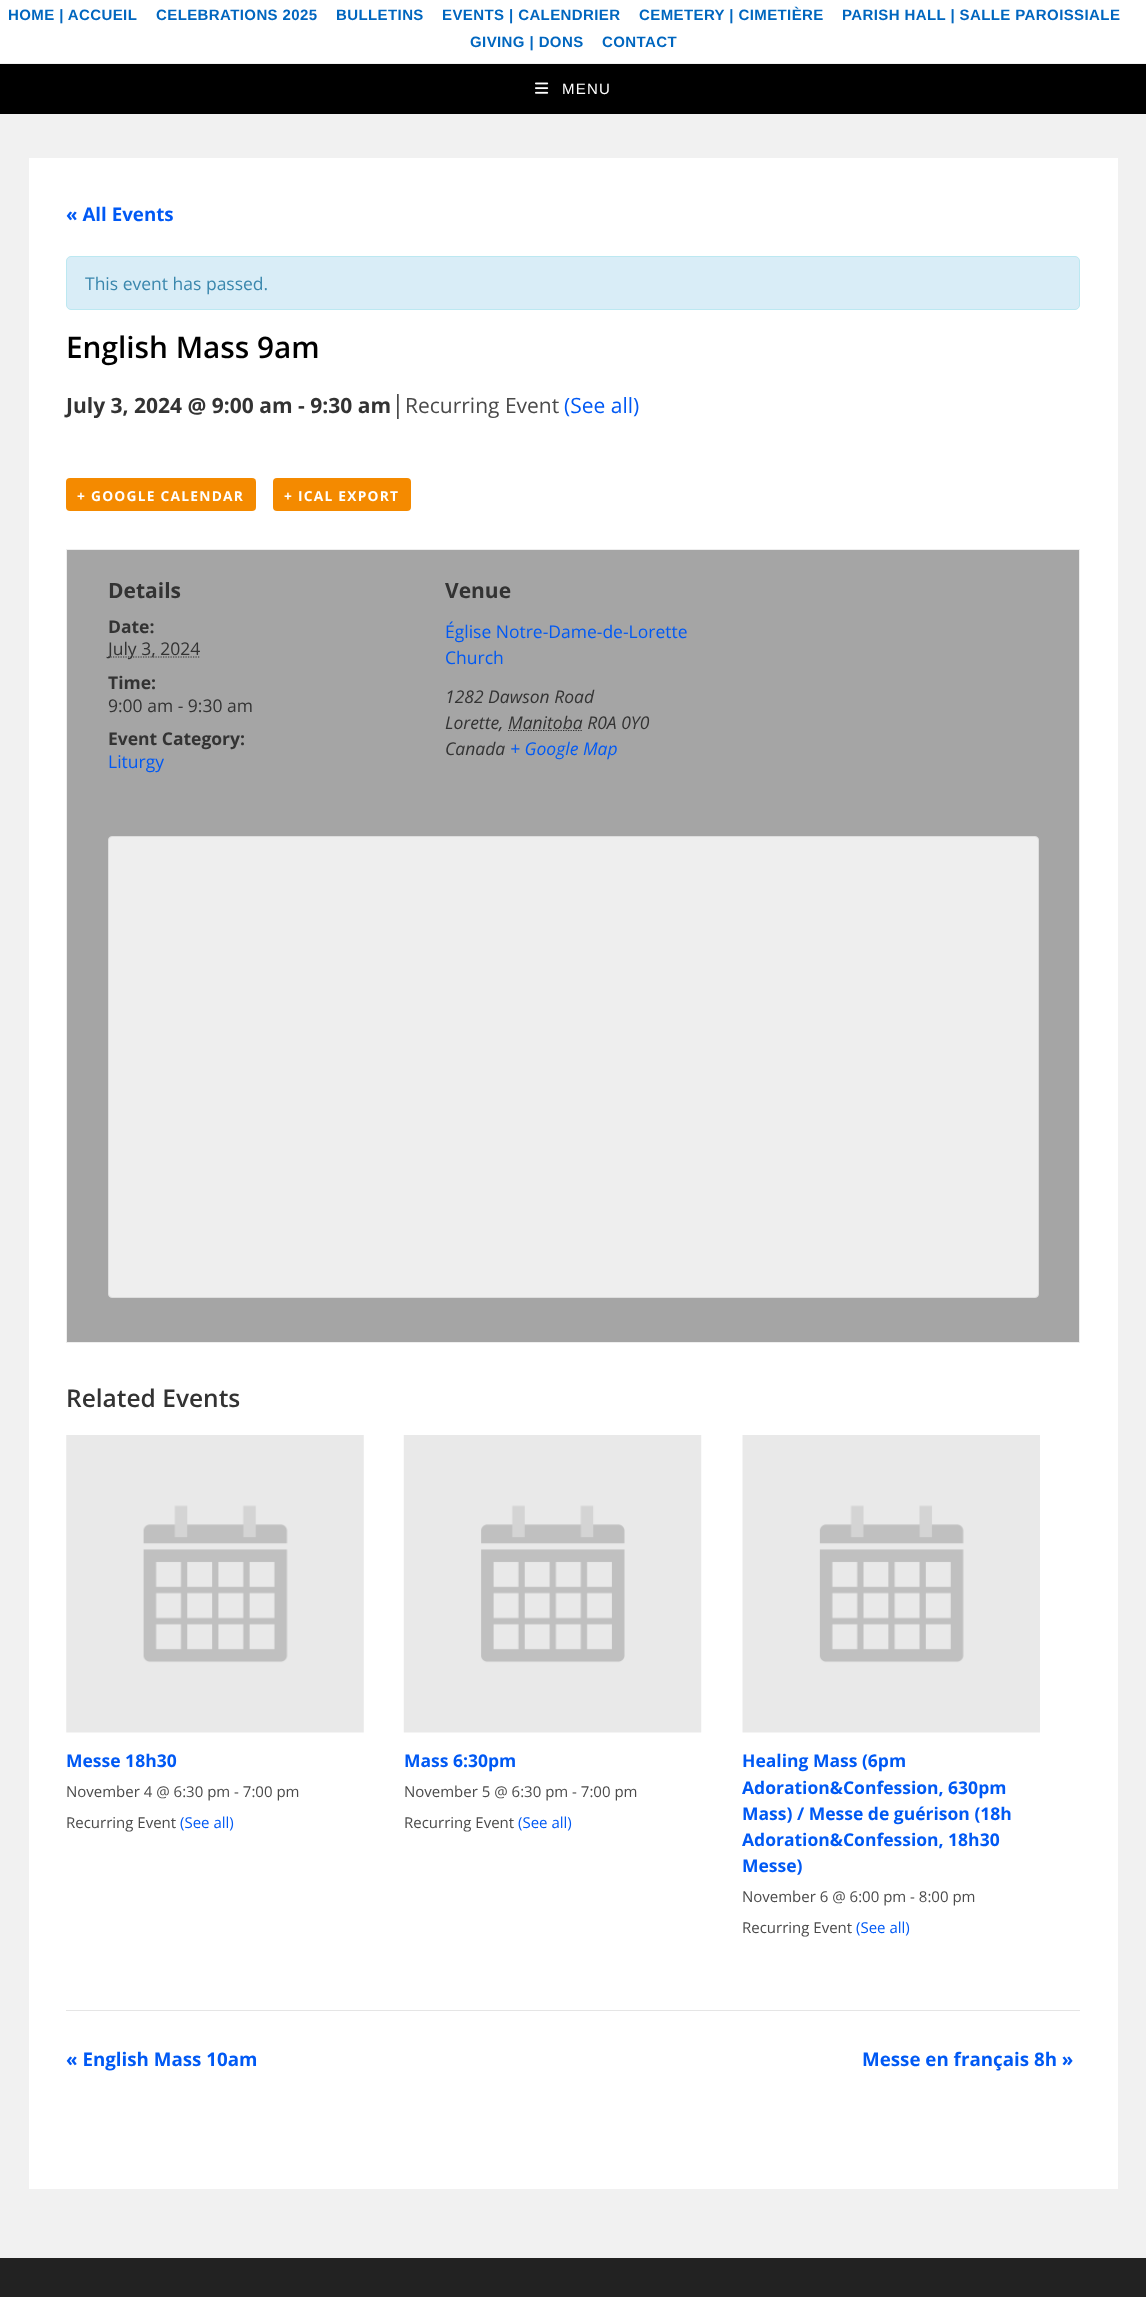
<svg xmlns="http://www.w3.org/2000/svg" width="1146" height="2297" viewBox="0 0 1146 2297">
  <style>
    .t1 { font: bold 15px Liberation Sans; letter-spacing: 0.4px; fill: #0066bf; }
    .t2 { font: 15px Liberation Sans; letter-spacing: 1.25px; fill: #fff; }
    .t3 { font: bold 18.75px Open Sans; fill: #0059f4; }
    .t4 { font: 17.5px Open Sans; fill: #3a87ad; }
    .t5 { font: 600 29.75px Open Sans; fill: #000; }
    .t6 { font: bold 21px Open Sans; fill: #333; }
    .t7 { font: 25px Open Sans; fill: #4a4a4a; }
    .t8 { font: 21px Open Sans; fill: #4a4a4a; }
    .t9 { font: 21px Open Sans; fill: #0059f4; }
    .t10 { font: bold 13.75px Open Sans; letter-spacing: 1.25px; fill: #fff; }
    .t11 { font: bold 17.5px Open Sans; fill: #333; }
    .t12 { font: 17.5px Open Sans; fill: #333; }
    .t13 { font: 17.5px Open Sans; fill: #0059f4; }
    .t14 { font: italic 17.5px Open Sans; fill: #333; }
    .t15 { font: italic 17.5px Open Sans; fill: #0059f4; }
    .t16 { font: 600 24.5px Open Sans; fill: #333; }
    .t17 { font: bold 17.5px Open Sans; fill: #0059f4; }
    .t18 { font: 15px Open Sans; fill: #4a4a4a; }
    .t19 { font: 15px Open Sans; fill: #0059f4; }
  </style>
  <rect width="100%" height="100%" fill="#f1f1f1"/>
  <rect x="0" y="0" width="1146" height="63" fill="#fff"/>
  <text x="8" y="20" class="t1">HOME | ACCUEIL</text>
  <text x="156" y="20" class="t1">CELEBRATIONS 2025</text>
  <text x="336" y="20" class="t1">BULLETINS</text>
  <text x="442" y="20" class="t1">EVENTS | CALENDRIER</text>
  <text x="639" y="20" class="t1">CEMETERY | CIMETIÈRE</text>
  <text x="842" y="20" class="t1">PARISH HALL | SALLE PAROISSIALE</text>
  <text x="470" y="47" class="t1">GIVING | DONS</text>
  <text x="602" y="47" class="t1">CONTACT</text>
  <rect x="0" y="64" width="1146" height="50" fill="#000"/>
  <image x="535" y="82" width="14" height="12" href="images/1.png"/>
  <text x="562" y="94" class="t2">MENU</text>
  <rect x="29" y="158" width="1089" height="2031" fill="#fff"/>
  <text x="66" y="221" class="t3">« All Events</text>
  <rect x="66.5" y="256.5" width="1013" height="53" rx="4.5" fill="#d9edf7" stroke="#bce8f1"/>
  <text x="85" y="290" class="t4">This event has passed.</text>
  <text x="66" y="358" class="t5">English Mass 9am</text>
  <text x="66" y="413" class="t6">July 3, 2024 @ 9:00 am - 9:30 am</text>
  <text x="391" y="413" class="t7">|</text>
  <text x="405" y="413" class="t8">Recurring Event</text>
  <text x="564" y="413" class="t9">(See all)</text>
  <rect x="66" y="478" width="190" height="33" rx="4" fill="#f48a00"/>
  <text x="77" y="501" class="t10">+ GOOGLE CALENDAR</text>
  <rect x="273" y="478" width="138" height="33" rx="4" fill="#f48a00"/>
  <text x="284" y="501" class="t10">+ ICAL EXPORT</text>
  <rect x="66.5" y="549.5" width="1013" height="793" fill="#a5a5a5" stroke="#eee"/>
  <text x="108" y="598" class="t6">Details</text>
  <text x="108" y="633" class="t11">Date:</text>
  <path d="M108 657H200" fill="none" stroke="#333" stroke-width="1.2" stroke-dasharray="1.25 1.25"/>
  <text x="108" y="655" class="t12">July 3, 2024</text>
  <text x="108" y="689" class="t11">Time:</text>
  <text x="108" y="712" class="t12">9:00 am - 9:30 am</text>
  <text x="108" y="745" class="t11">Event Category:</text>
  <text x="108" y="768" class="t13">Liturgy</text>
  <text x="445" y="598" class="t6">Venue</text>
  <text x="445" y="638" class="t13">Église Notre-Dame-de-Lorette</text>
  <text x="445" y="664" class="t13">Church</text>
  <text x="445" y="703" class="t14">1282 Dawson Road</text>
  <text x="445" y="729" class="t14">Lorette,</text>
  <path d="M508 730.5H582.5" fill="none" stroke="#333" stroke-width="1.2" stroke-dasharray="1.25 1.25"/>
  <text x="508" y="729" class="t14">Manitoba R0A 0Y0</text>
  <text x="445" y="755" class="t14">Canada</text>
  <text x="510" y="755" class="t15">+ Google Map</text>
  <rect x="108.5" y="836.5" width="930" height="461" rx="3.5" fill="#eee" stroke="#ddd"/>
  <text x="66" y="1407" class="t16">Related Events</text>
  <image x="66" y="1435" width="298" height="298" href="images/2.png"/>
  <text x="66" y="1767" class="t17">Messe 18h30</text>
  <text x="66" y="1797" class="t18">November 4 @ 6:30 pm - 7:00 pm</text>
  <text x="66" y="1828" class="t18">Recurring Event</text>
  <text x="180" y="1828" class="t19">(See all)</text>
  <image x="403" y="1435" width="299" height="298" href="images/3.png"/>
  <text x="404" y="1767" class="t17">Mass 6:30pm</text>
  <text x="404" y="1797" class="t18">November 5 @ 6:30 pm - 7:00 pm</text>
  <text x="404" y="1828" class="t18">Recurring Event</text>
  <text x="518" y="1828" class="t19">(See all)</text>
  <image x="742" y="1435" width="298" height="298" href="images/4.png"/>
  <text x="742" y="1767" class="t17">Healing Mass (6pm</text>
  <text x="742" y="1794" class="t17">Adoration&amp;Confession, 630pm</text>
  <text x="742" y="1820" class="t17">Mass) / Messe de guérison (18h</text>
  <text x="742" y="1846" class="t17">Adoration&amp;Confession, 18h30</text>
  <text x="742" y="1872" class="t17">Messe)</text>
  <text x="742" y="1902" class="t18">November 6 @ 6:00 pm - 8:00 pm</text>
  <text x="742" y="1933" class="t18">Recurring Event</text>
  <text x="856" y="1933" class="t19">(See all)</text>
  <rect x="66" y="2010" width="1014" height="1" fill="#e5e5e5"/>
  <text x="66" y="2066" class="t3">« English Mass 10am</text>
  <text x="862" y="2066" class="t3">Messe en français 8h »</text>
  <rect x="0" y="2258" width="1146" height="39" fill="#222"/>
</svg>
